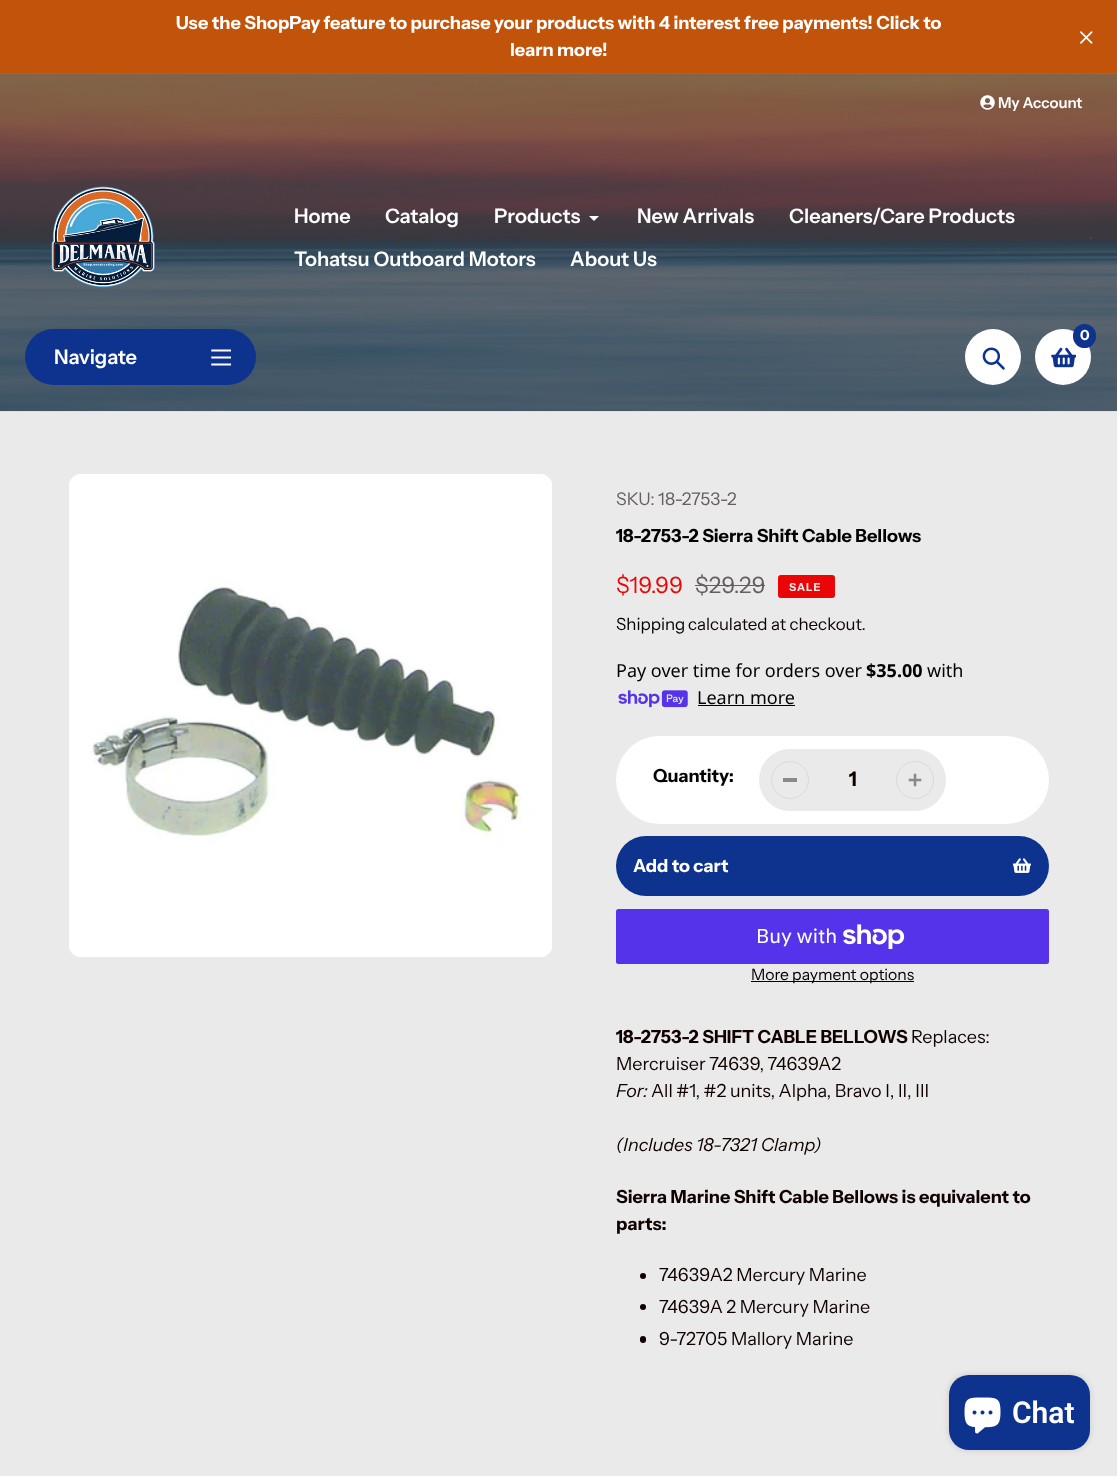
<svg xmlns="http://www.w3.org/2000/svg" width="1117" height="1476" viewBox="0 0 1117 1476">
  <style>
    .t1 { font: bold 18px Instrument Sans; fill: #fff; }
    .t2 { font: 600 15px Instrument Sans; fill: #fff; }
    .t3 { font: 600 20px Instrument Sans; fill: #fff; }
    .t4 { font: bold 14px Instrument Sans; fill: #fff; }
    .t5 { font: 17.5px Instrument Sans; fill: #675e5e; }
    .t6 { font: bold 18px Instrument Sans; fill: #030000; }
    .t7 { font: 22.5px Instrument Sans; fill: #ea0606; }
    .t8 { font: 22.5px Instrument Sans; fill: #675e5e; }
    .t9 { font: bold 11px Instrument Sans; letter-spacing: 1px; fill: #eaeaea; }
    .t10 { font: 16.9px Instrument Sans; fill: #030000; }
    .t11 { font: 16.9px Instrument Sans; fill: #100000; }
    .t12 { font: 18px Noto Sans; fill: #030000; }
    .t13 { font: bold 18px Noto Sans; fill: #030000; }
    .t14 { font: bold 20px Instrument Sans; fill: #100000; }
    .t15 { font: 20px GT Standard; fill: #fff; }
    .t16 { font: 15.75px Instrument Sans; fill: #030000; }
    .t17 { font: bold 18px Instrument Sans; fill: #100000; }
    .t18 { font: 18px Instrument Sans; fill: #100000; }
    .t19 { font: italic 18px Instrument Sans; fill: #100000; }
    .t20 { font: 600 30px Roboto; fill: #fff; }
  </style>
  <rect width="100%" height="100%" fill="#eaeaea"/>
  <rect x="0" y="0" width="1117" height="74" fill="#c1530a"/>
  <text x="176" y="29" class="t1">Use the ShopPay feature to purchase your products with 4 interest free payments! Click to</text>
  <text x="510" y="56" class="t1">learn more!</text>
  <image x="1080" y="31" width="13" height="13" href="images/1.png"/>
  <rect x="0" y="74" width="1117" height="337" fill="#3a3a3a"/>
  <image x="0" y="73" width="1117" height="339" href="images/2.png"/>
  <image x="980" y="95" width="15" height="15" href="images/3.png"/>
  <text x="998" y="108" class="t2">My Account</text>
  <image x="51" y="186" width="104" height="102" href="images/4.png"/>
  <text x="294" y="223" class="t3">Home</text>
  <text x="385" y="223" class="t3">Catalog</text>
  <text x="494" y="223" class="t3">Products</text>
  <path d="M599 216L594 221L589 216" fill="#fff"/>
  <text x="637" y="223" class="t3">New Arrivals</text>
  <text x="789" y="223" class="t3">Cleaners/Care Products</text>
  <text x="294" y="266" class="t3">Tohatsu Outboard Motors</text>
  <text x="570" y="266" class="t3">About Us</text>
  <circle cx="993" cy="357" r="28" fill="#fff"/>
  <image x="982" y="347" width="23" height="23" href="images/5.png"/>
  <circle cx="1063" cy="357" r="28" fill="#fff"/>
  <image x="1051" y="347" width="25" height="21" href="images/6.png"/>
  <rect x="1073" y="324" width="23" height="24" rx="11.5" fill="#0e338f"/>
  <text x="1080" y="340" class="t4">0</text>
  <rect x="25" y="329" width="231" height="56" rx="28" fill="#0e338f"/>
  <text x="54" y="364" class="t3">Navigate</text>
  <image x="211" y="349" width="20" height="17" href="images/7.png"/>
  <image x="69" y="474" width="483" height="483" href="images/8.png"/>
  <text x="616" y="505" class="t5">SKU: 18-2753-2</text>
  <text x="616" y="542" class="t6">18-2753-2 Sierra Shift Cable Bellows</text>
  <text x="616" y="593" class="t7">$19.99</text>
  <text x="695" y="593" class="t8">$29.29</text>
  <rect x="695" y="585" width="70" height="1" fill="#675e5e"/>
  <rect x="778.5" y="575.5" width="56" height="22" rx="2" fill="#ea0606" stroke="#ea0606"/>
  <text x="789" y="591" class="t9">SALE</text>
  <text x="616" y="630" class="t10">Shipping</text>
  <text x="688" y="630" class="t11">calculated at checkout.</text>
  <text x="616" y="677" class="t12">Pay over time for orders over</text>
  <text x="866" y="677" class="t13">$35.00</text>
  <text x="927" y="677" class="t12">with</text>
  <image x="618" y="690" width="70" height="18" href="images/9.png"/>
  <text x="697" y="704" class="t12">Learn more</text>
  <rect x="698" y="705" width="97" height="1" fill="#030000"/>
  <rect x="616" y="736" width="433" height="88" rx="44" fill="#fff"/>
  <text x="653" y="782" class="t6">Quantity:</text>
  <rect x="759" y="749" width="187" height="62" rx="31" fill="#eaeaea"/>
  <rect x="783" y="778" width="14" height="4" fill="#898989"/>
  <circle cx="790" cy="780" r="18.5" fill="none" stroke="#d7dbdb"/>
  <text x="849" y="786" class="t14">1</text>
  <image x="908" y="773" width="14" height="14" href="images/10.png"/>
  <circle cx="915" cy="780" r="18.5" fill="none" stroke="#d7dbdb"/>
  <rect x="616" y="836" width="433" height="60" rx="30" fill="#0e338f"/>
  <text x="633" y="872" class="t1">Add to cart</text>
  <image x="1013" y="858" width="18" height="15" href="images/11.png"/>
  <rect x="616" y="909" width="433" height="55" rx="2.5" fill="#5433eb"/>
  <text x="756" y="943" class="t15">Buy with</text>
  <image x="843" y="924" width="62" height="25" href="images/12.png"/>
  <rect x="751" y="981" width="163" height="1" fill="#030000"/>
  <text x="751" y="980" class="t16">More payment options</text>
  <text x="616" y="1043" class="t17">18-2753-2 SHIFT CABLE BELLOWS</text>
  <text x="911" y="1043" class="t18">Replaces:</text>
  <text x="616" y="1070" class="t18">Mercruiser 74639, 74639A2</text>
  <text x="616" y="1097" class="t19">For:</text>
  <text x="651" y="1097" class="t18">All #1, #2 units, Alpha, Bravo I, II, III</text>
  <text x="616" y="1151" class="t19">(Includes 18-7321 Clamp)</text>
  <text x="616" y="1203" class="t17">Sierra Marine Shift Cable Bellows is equivalent to</text>
  <text x="616" y="1230" class="t17">parts:</text>
  <circle cx="643" cy="1276" r="3" fill="#100000"/>
  <text x="659" y="1281" class="t18">74639A2 Mercury Marine</text>
  <circle cx="643" cy="1307" r="3" fill="#100000"/>
  <text x="659" y="1313" class="t18">74639A 2 Mercury Marine</text>
  <rect x="640" y="1336" width="6" height="7" rx="3" fill="#100000"/>
  <text x="659" y="1345" class="t18">9-72705 Mallory Marine</text>
  <rect x="949" y="1375" width="141" height="75" rx="20" fill="#00000026" filter="blur(3px)"/>
  <rect x="949" y="1375" width="141" height="75" rx="20" fill="#0e338f"/>
  <image x="964" y="1397" width="37" height="37" href="images/13.png"/>
  <text x="1012" y="1423" class="t20">Chat</text>
</svg>
